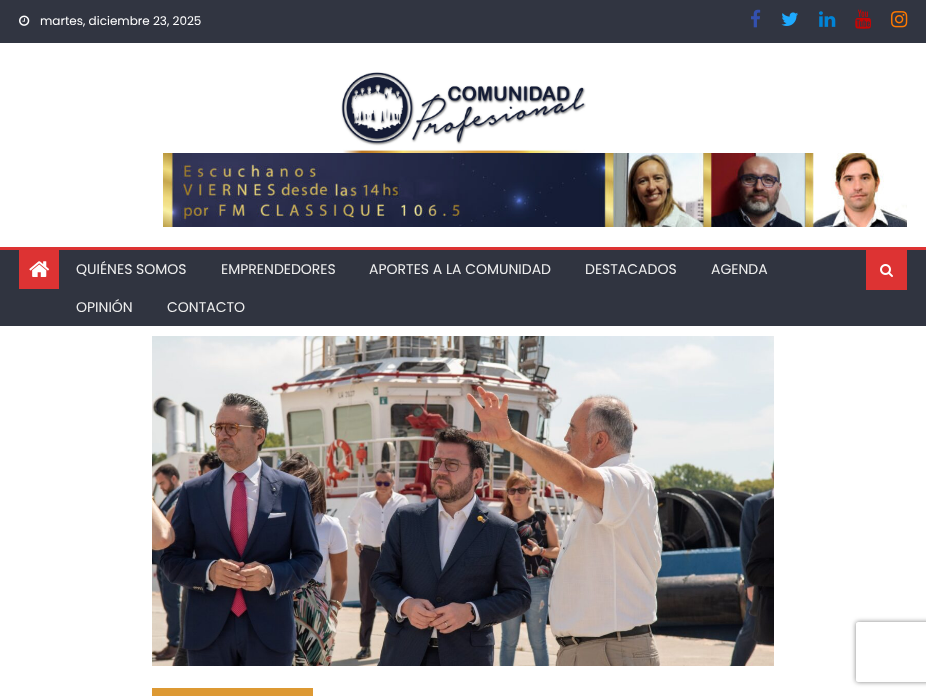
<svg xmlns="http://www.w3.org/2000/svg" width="926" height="696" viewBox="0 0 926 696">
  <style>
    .t1 { font: 12px Poppins; fill: #fff; }
    .t2 { font: 14px Poppins; fill: #eee; }
  </style>
  <defs>
    <clipPath id="clip1"><path d="M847 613H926V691H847ZM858 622H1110C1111 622 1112 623 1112 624V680C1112 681 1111 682 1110 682H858C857 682 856 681 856 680V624C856 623 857 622 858 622Z" clip-rule="evenodd"/></clipPath>
  </defs>
  <rect width="100%" height="100%" fill="#fff"/>
  <rect x="0" y="0" width="926" height="43" fill="#313541"/>
  <image x="19" y="15" width="11" height="11" href="images/1.png"/>
  <text x="40" y="25" class="t1">martes, diciembre 23, 2025</text>
  <image x="751" y="9" width="10" height="19" href="images/2.png"/>
  <image x="781" y="12" width="17" height="14" href="images/3.png"/>
  <image x="819" y="11" width="17" height="16" href="images/4.png"/>
  <image x="855" y="9" width="16" height="20" href="images/5.png"/>
  <image x="891" y="11" width="17" height="17" href="images/6.png"/>
  <image x="341" y="72" width="245" height="81" href="images/7.png"/>
  <image x="163" y="153" width="744" height="74" href="images/8.png"/>
  <rect x="0" y="250" width="926" height="76" fill="#303440"/>
  <rect x="0" y="247" width="926" height="3" fill="#d33"/>
  <rect x="19" y="250" width="40" height="39" fill="#d33"/>
  <image x="29" y="261" width="21" height="16" href="images/9.png"/>
  <text x="76" y="274" class="t2">QUIÉNES SOMOS</text>
  <text x="221" y="274" class="t2">EMPRENDEDORES</text>
  <text x="369" y="274" class="t2">APORTES A LA COMUNIDAD</text>
  <text x="585" y="274" class="t2">DESTACADOS</text>
  <text x="711" y="274" class="t2">AGENDA</text>
  <text x="76" y="312" class="t2">OPINIÓN</text>
  <text x="167" y="312" class="t2">CONTACTO</text>
  <rect x="866" y="250" width="41" height="40" fill="#d33"/>
  <image x="880" y="264" width="13" height="13" href="images/10.png"/>
  <image x="152" y="336" width="622" height="330" href="images/11.png"/>
  <rect x="152" y="688" width="161" height="8" fill="#d93"/>
  <g clip-path="url(#clip1)">
    <rect x="856" y="622" width="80" height="60" rx="2" fill="#808080" filter="blur(2.5px)"/>
  </g>
</svg>
